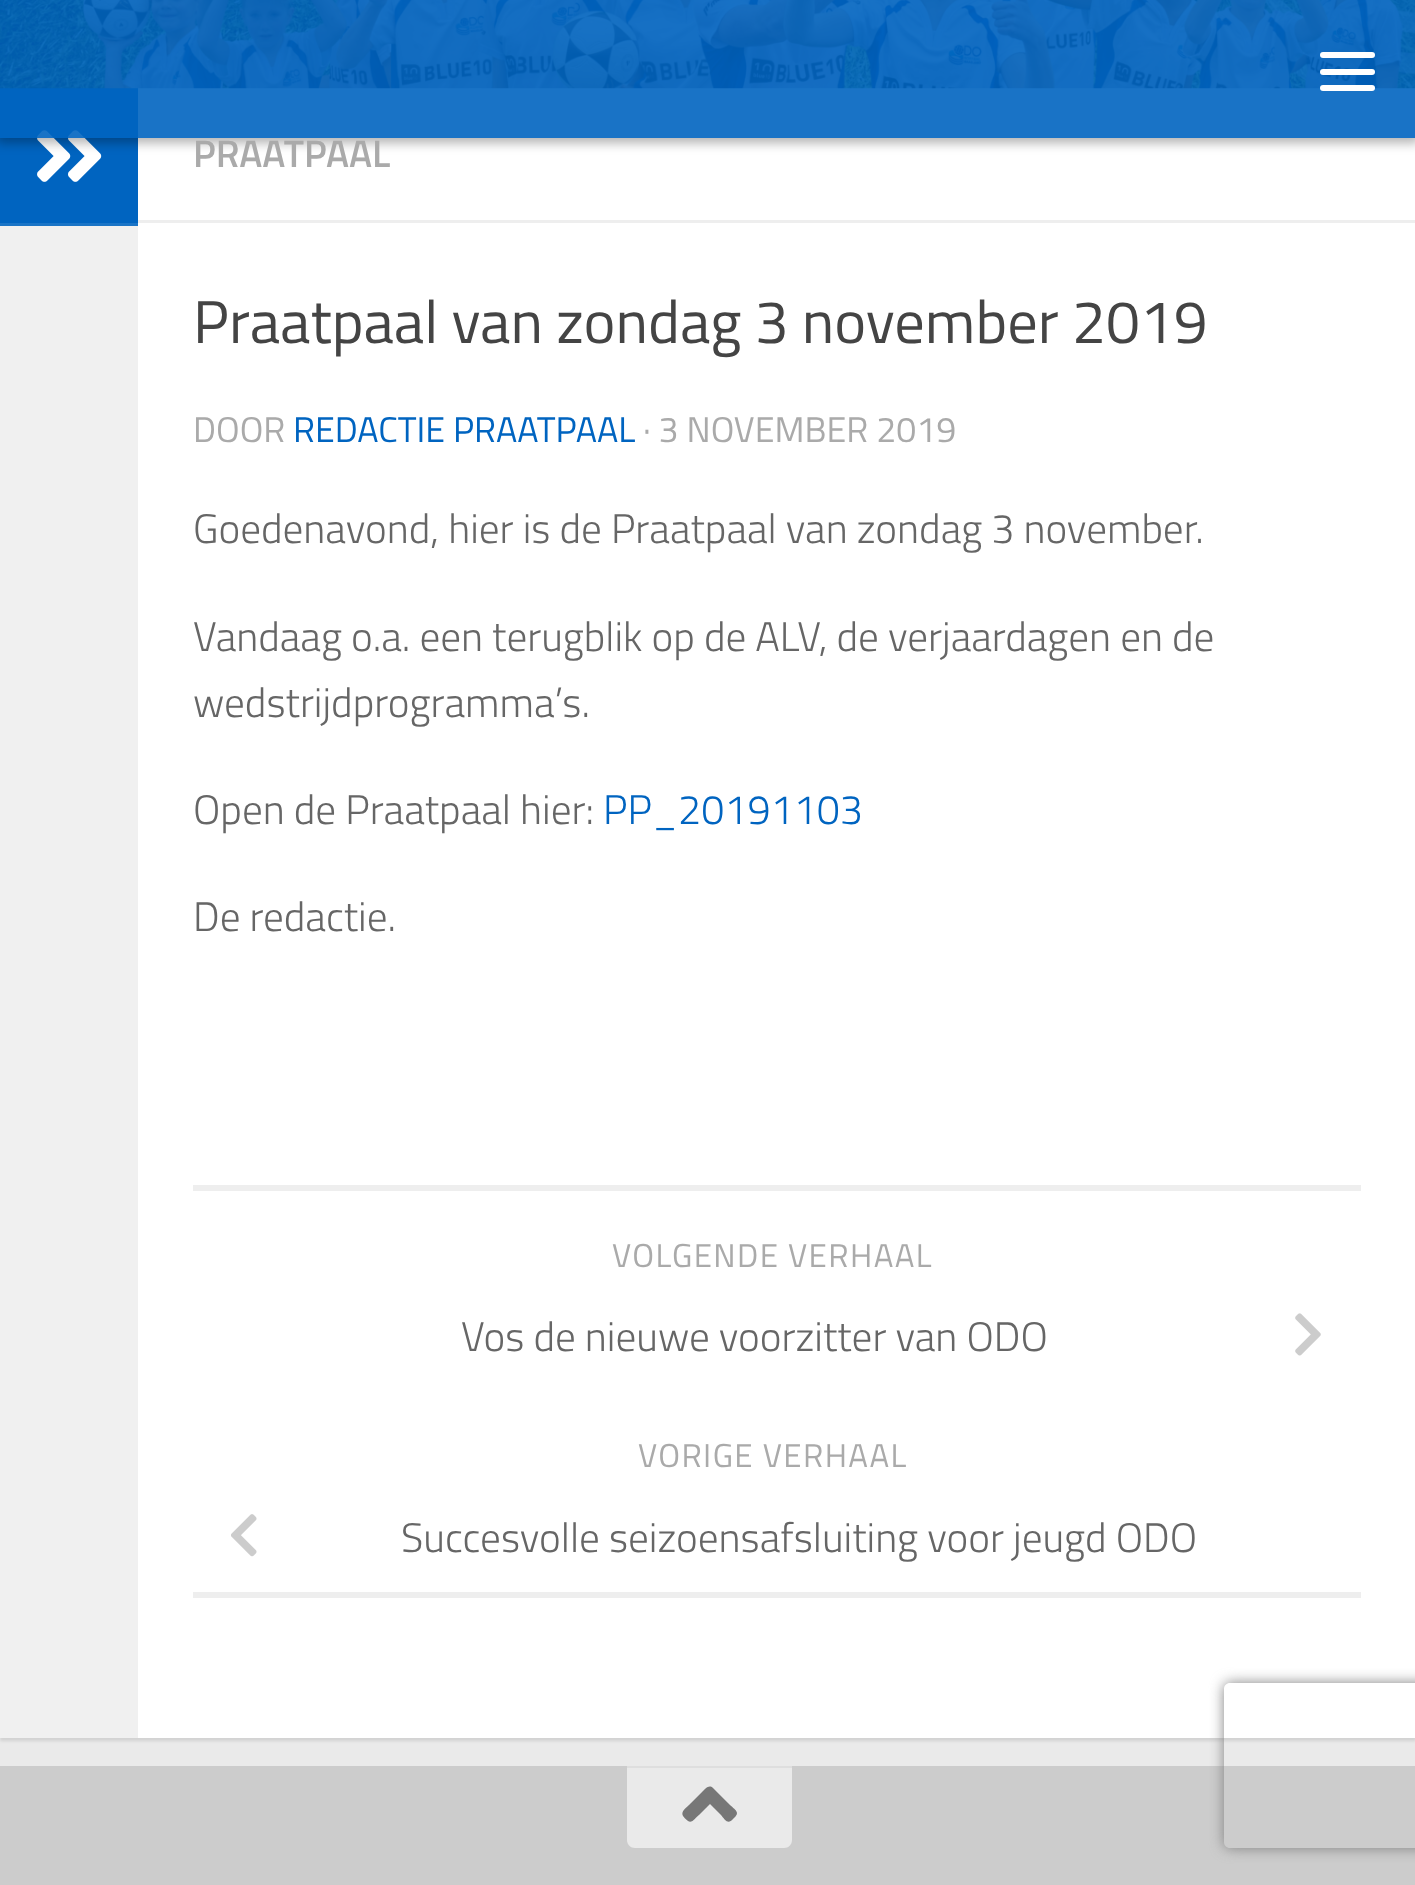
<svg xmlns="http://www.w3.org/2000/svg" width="1415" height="1885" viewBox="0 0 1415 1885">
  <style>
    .t1 { font: 600 38.5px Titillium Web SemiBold; fill: #aaa; }
    .t2 { font: 60.5px Titillium Web; fill: #444; }
    .t3 { font: 35.75px Titillium Web; fill: #aaa; }
    .t4 { font: 35.75px Titillium Web; fill: #0064c0; }
    .t5 { font: 300 41.25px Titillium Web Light; fill: #666; }
    .t6 { font: 300 41.25px Titillium Web Light; fill: #0064c0; }
    .t7 { font: 33px Titillium Web; letter-spacing: 1.4px; fill: #aaa; }
  </style>
  <defs>
    <clipPath id="clip1"><path d="M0 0H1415V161H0ZM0 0H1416V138H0Z" clip-rule="evenodd"/></clipPath>
    <clipPath id="clip2"><path d="M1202 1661H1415V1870H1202ZM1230 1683H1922C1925.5 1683 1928 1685.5 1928 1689V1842C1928 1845.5 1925.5 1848 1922 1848H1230C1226.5 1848 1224 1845.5 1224 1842V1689C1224 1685.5 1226.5 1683 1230 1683Z" clip-rule="evenodd"/></clipPath>
  </defs>
  <rect width="100%" height="100%" fill="#eaeaea"/>
  <rect x="0" y="91" width="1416" height="1650" fill="#0000001a" filter="blur(1.5px)"/>
  <rect x="138" y="88" width="1277" height="1650" fill="#fff"/>
  <rect x="0" y="88" width="138" height="135" fill="#0064c0"/>
  <image x="0" y="0" width="1415" height="89" href="images/1.png"/>
  <image x="37" y="130" width="65" height="52" href="images/2.png"/>
  <g clip-path="url(#clip1)">
    <rect x="-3" y="0" width="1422" height="143" fill="#0000004d" filter="blur(5.5px)"/>
  </g>
  <rect x="0" y="0" width="1415" height="138" fill="#0064c0e6"/>
  <rect x="1320" y="52" width="55" height="6" rx="3" fill="#fff"/>
  <rect x="1320" y="69" width="55" height="6" rx="3" fill="#fff"/>
  <rect x="1320" y="85" width="55" height="6" rx="3" fill="#fff"/>
  <rect x="0" y="226" width="138" height="1512" fill="#f0f0f0"/>
  <rect x="0" y="223" width="138" height="3" fill="#1a74c6"/>
  <rect x="138" y="220" width="1277" height="3" fill="#eee"/>
  <text x="193" y="167" class="t1">PRAATPAAL</text>
  <text x="193" y="343" class="t2">Praatpaal van zondag 3 november 2019</text>
  <text x="193" y="442" class="t3">DOOR</text>
  <text x="293" y="442" class="t4">REDACTIE PRAATPAAL</text>
  <text x="643" y="442" class="t3">· 3 NOVEMBER 2019</text>
  <text x="193" y="543" class="t5">Goedenavond, hier is de Praatpaal van zondag 3 november.</text>
  <text x="193" y="651" class="t5">Vandaag o.a. een terugblik op de ALV, de verjaardagen en de</text>
  <text x="193" y="717" class="t5">wedstrijdprogramma’s.</text>
  <text x="193" y="824" class="t5">Open de Praatpaal hier:</text>
  <text x="603" y="824" class="t6">PP_20191103</text>
  <text x="193" y="931" class="t5">De redactie.</text>
  <rect x="193" y="1185" width="1168" height="6" fill="#eee"/>
  <rect x="193" y="1592" width="1168" height="6" fill="#eee"/>
  <text x="612" y="1267" class="t7">VOLGENDE VERHAAL</text>
  <text x="461" y="1351" class="t5">Vos de nieuwe voorzitter van ODO</text>
  <image x="1295" y="1313" width="26" height="43" href="images/3.png"/>
  <text x="638" y="1467" class="t7">VORIGE VERHAAL</text>
  <image x="231" y="1514" width="26" height="43" href="images/4.png"/>
  <text x="401" y="1552" class="t5">Succesvolle seizoensafsluiting voor jeugd ODO</text>
  <rect x="0" y="1766" width="1415" height="119" fill="#ccc"/>
  <path d="M627 1766H792V1840C792 1844.5 788.5 1848 784 1848H635C630.5 1848 627 1844.5 627 1840Z" fill="#eaeaea"/>
  <rect x="627" y="1766" width="165" height="2" fill="#dedede"/>
  <path d="M713 1788L728 1803C736 1811 741 1812 733 1819C728 1825 725 1820 721 1815L710 1804L699 1815C696 1817 692 1824 688 1821C678 1813 683 1811 691 1803L703 1791C705 1789 709 1784 713 1788Z" fill="#777"/>
  <g clip-path="url(#clip2)">
    <rect x="1224" y="1683" width="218" height="165" rx="6" fill="#808080" filter="blur(7px)"/>
  </g>
</svg>
